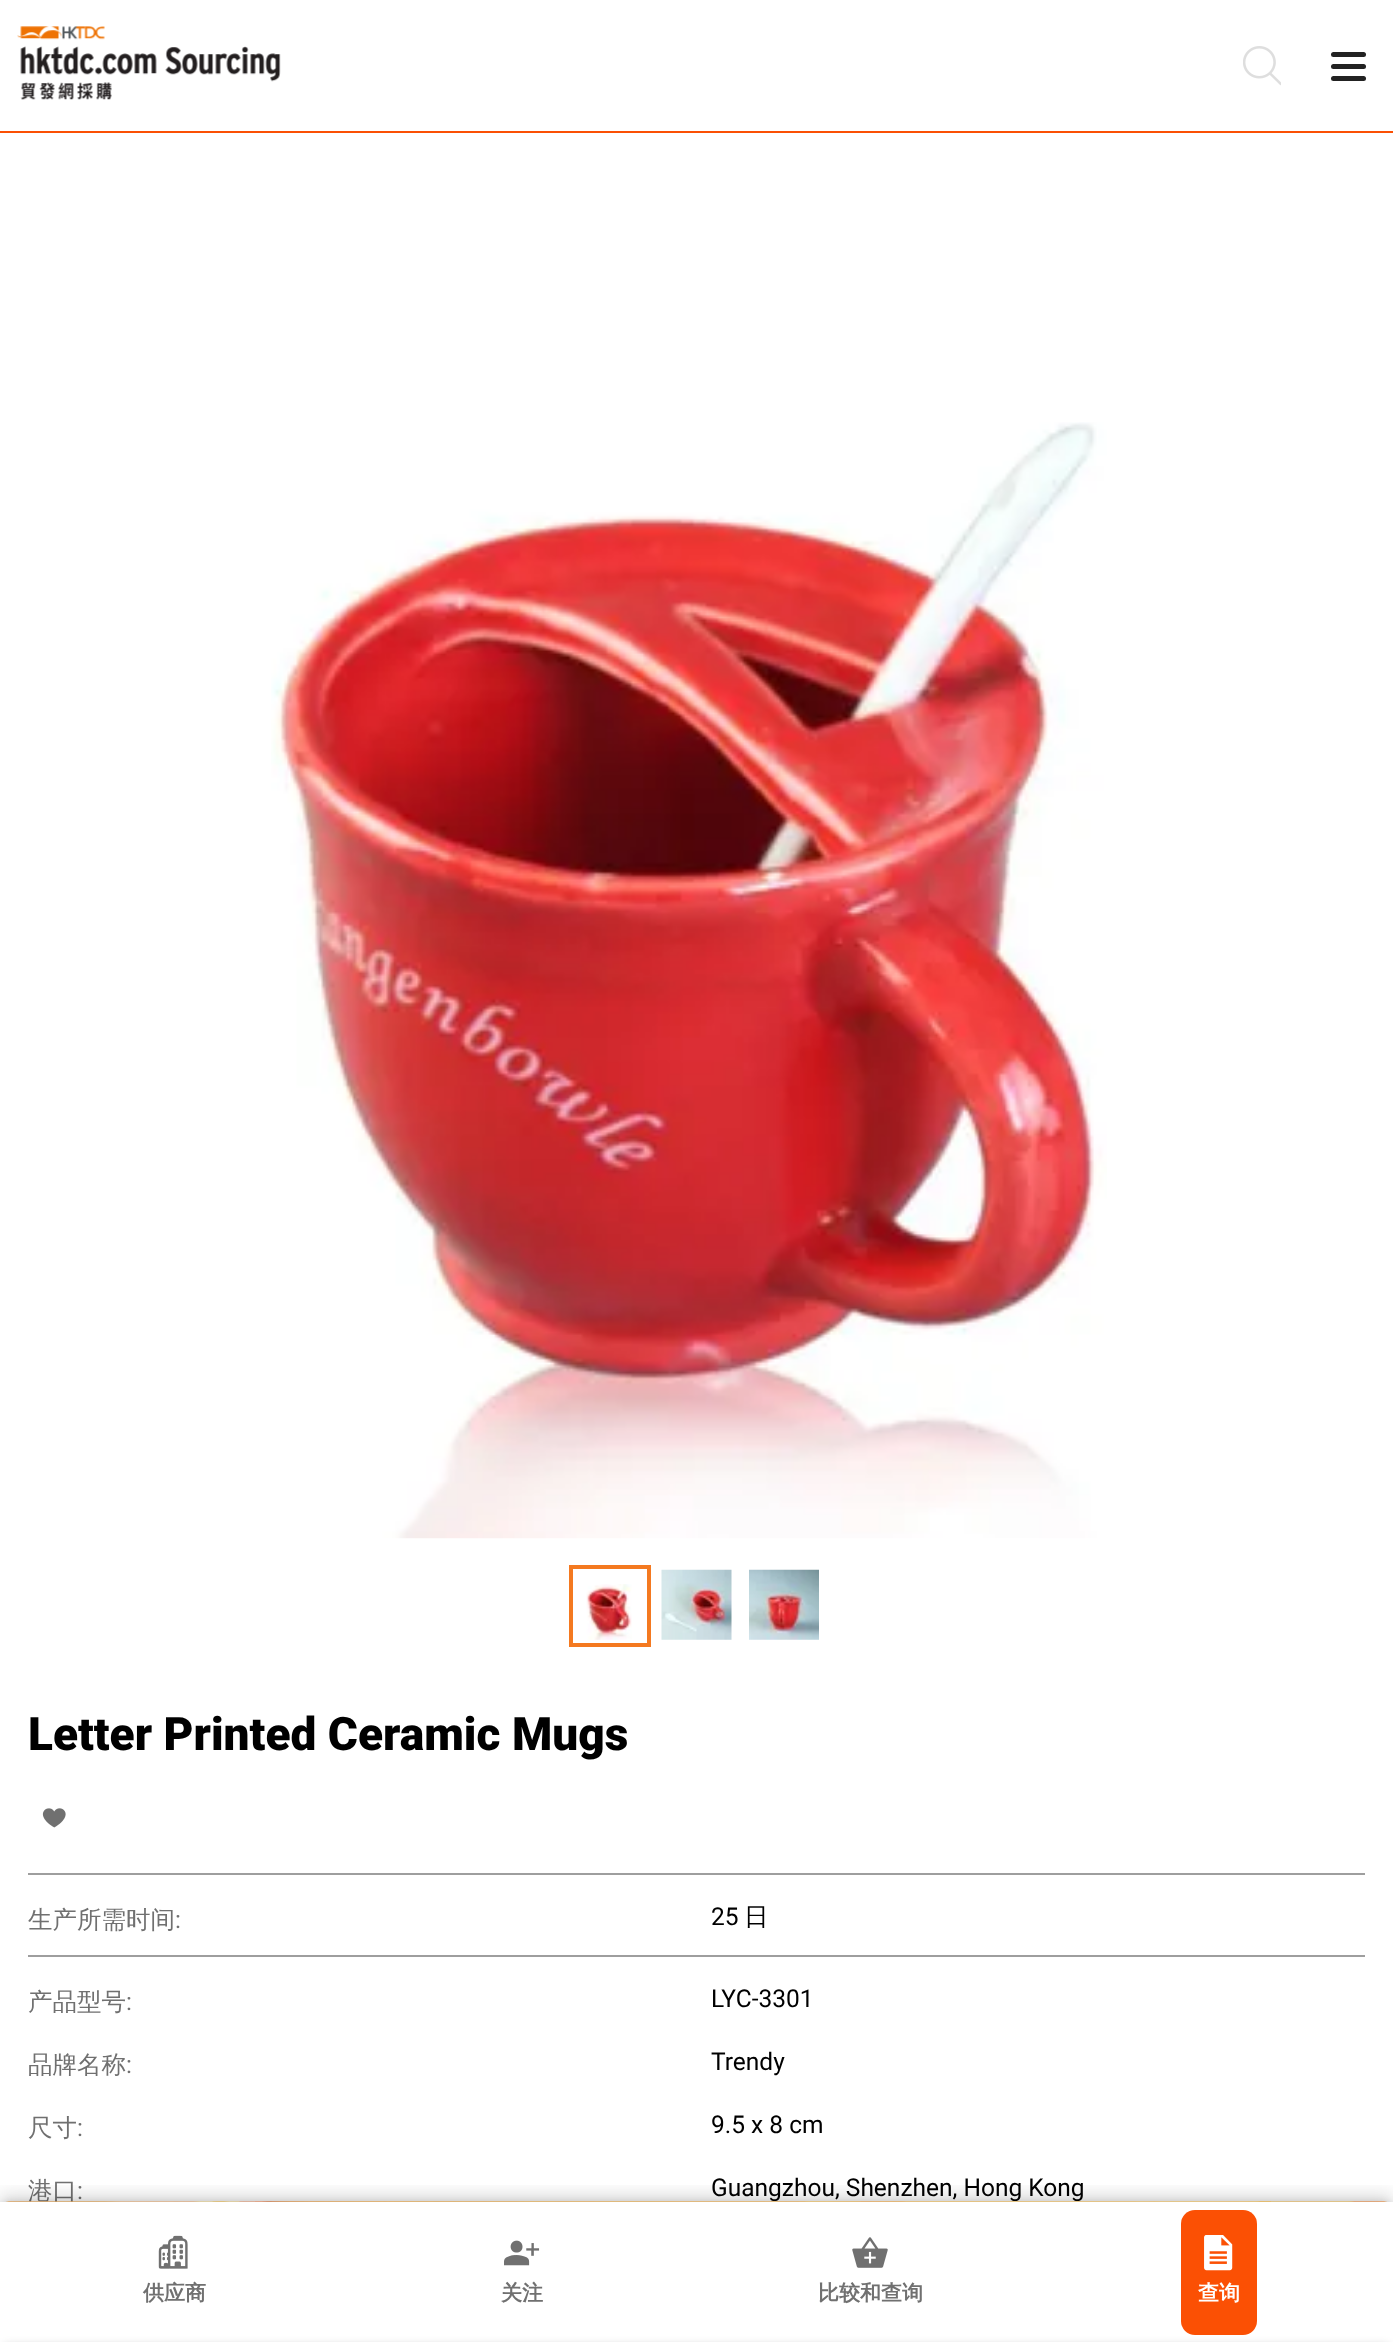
<svg xmlns="http://www.w3.org/2000/svg" width="1393" height="2342" viewBox="0 0 1393 2342">
  <style>
    .t1 { font: 900 46px Roboto; fill: #000; }
    .t2 { font: 500 24.5px WenQuanYi Zen Hei; fill: #707070; }
    .t3 { font: 24.5px Roboto; fill: #707070; }
    .t4 { font: 24.5px Roboto; fill: #000; }
    .t5 { font: 500 24.5px WenQuanYi Zen Hei; fill: #000; }
    .t6 { font: bold 21px WenQuanYi Zen Hei; fill: #707070; }
    .t7 { font: bold 21px WenQuanYi Zen Hei; fill: #fff; }
  </style>
  <defs>
    <clipPath id="clip1"><rect x="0" y="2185" width="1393" height="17"/></clipPath>
  </defs>
  <rect width="100%" height="100%" fill="#fff"/>
  <rect x="0" y="131" width="1393" height="2" fill="#fb5004"/>
  <image x="17" y="26" width="264" height="74" href="images/1.png"/>
  <image x="1243" y="46" width="38" height="40" href="images/2.png"/>
  <rect x="1331" y="52" width="35" height="5" rx="2.5" fill="#222"/>
  <rect x="1331" y="64" width="35" height="5" rx="2.5" fill="#222"/>
  <rect x="1331" y="76" width="35" height="5" rx="2.5" fill="#222"/>
  <image x="271" y="422" width="836" height="1117" href="images/3.png"/>
  <rect x="571" y="1567" width="78" height="78" fill="none" stroke="#f47920" stroke-width="4"/>
  <image x="586" y="1584" width="46" height="56" href="images/4.png"/>
  <image x="661" y="1569" width="71" height="71" href="images/5.png"/>
  <image x="749" y="1569" width="70" height="71" href="images/6.png"/>
  <text x="28" y="1750" class="t1">Letter Printed Ceramic Mugs</text>
  <image x="42" y="1808" width="24" height="20" href="images/7.png"/>
  <rect x="28" y="1873" width="1337" height="2" fill="#9e9e9e"/>
  <text x="28" y="1928" class="t2">生产所需时间</text>
  <text x="175" y="1928" class="t3">:</text>
  <text x="711" y="1925" class="t4">25</text>
  <text x="744" y="1925" class="t5">日</text>
  <rect x="28" y="1955" width="1337" height="2" fill="#9e9e9e"/>
  <text x="28" y="2010" class="t2">产品型号</text>
  <text x="126" y="2010" class="t3">:</text>
  <text x="711" y="2007" class="t4">LYC-3301</text>
  <text x="28" y="2073" class="t2">品牌名称</text>
  <text x="126" y="2073" class="t3">:</text>
  <text x="711" y="2070" class="t4">Trendy</text>
  <text x="28" y="2136" class="t2">尺寸</text>
  <text x="77" y="2136" class="t3">:</text>
  <text x="711" y="2133" class="t4">9.5 x 8 cm</text>
  <text x="28" y="2199" class="t2">港口</text>
  <text x="77" y="2199" class="t3">:</text>
  <text x="711" y="2196" class="t4">Guangzhou, Shenzhen, Hong Kong</text>
  <rect x="0" y="2203" width="1393" height="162" rx="9" fill="#00000033" filter="blur(4.5px)"/>
  <image x="5" y="2201" width="1383" height="1" href="images/8.png"/>
  <rect x="0" y="2202" width="1393" height="140" fill="#fff"/>
  <g clip-path="url(#clip1)">
    <rect x="0" y="2195" width="1393" height="141" fill="#00000024" filter="blur(9px)"/>
  </g>
  <image x="158" y="2235" width="30" height="34" href="images/9.png"/>
  <text x="143" y="2300" class="t6">供应商</text>
  <image x="504" y="2240" width="36" height="26" href="images/10.png"/>
  <text x="501" y="2300" class="t6">关注</text>
  <image x="852" y="2237" width="36" height="31" href="images/11.png"/>
  <text x="818" y="2300" class="t6">比较和查询</text>
  <rect x="1181" y="2210" width="76" height="125" rx="14" fill="#fb5004"/>
  <image x="1204" y="2235" width="29" height="36" href="images/12.png"/>
  <text x="1198" y="2300" class="t7">查询</text>
  <rect x="0" y="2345" width="1393" height="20" rx="9" fill="#00000033" filter="blur(4.5px)"/>
</svg>
